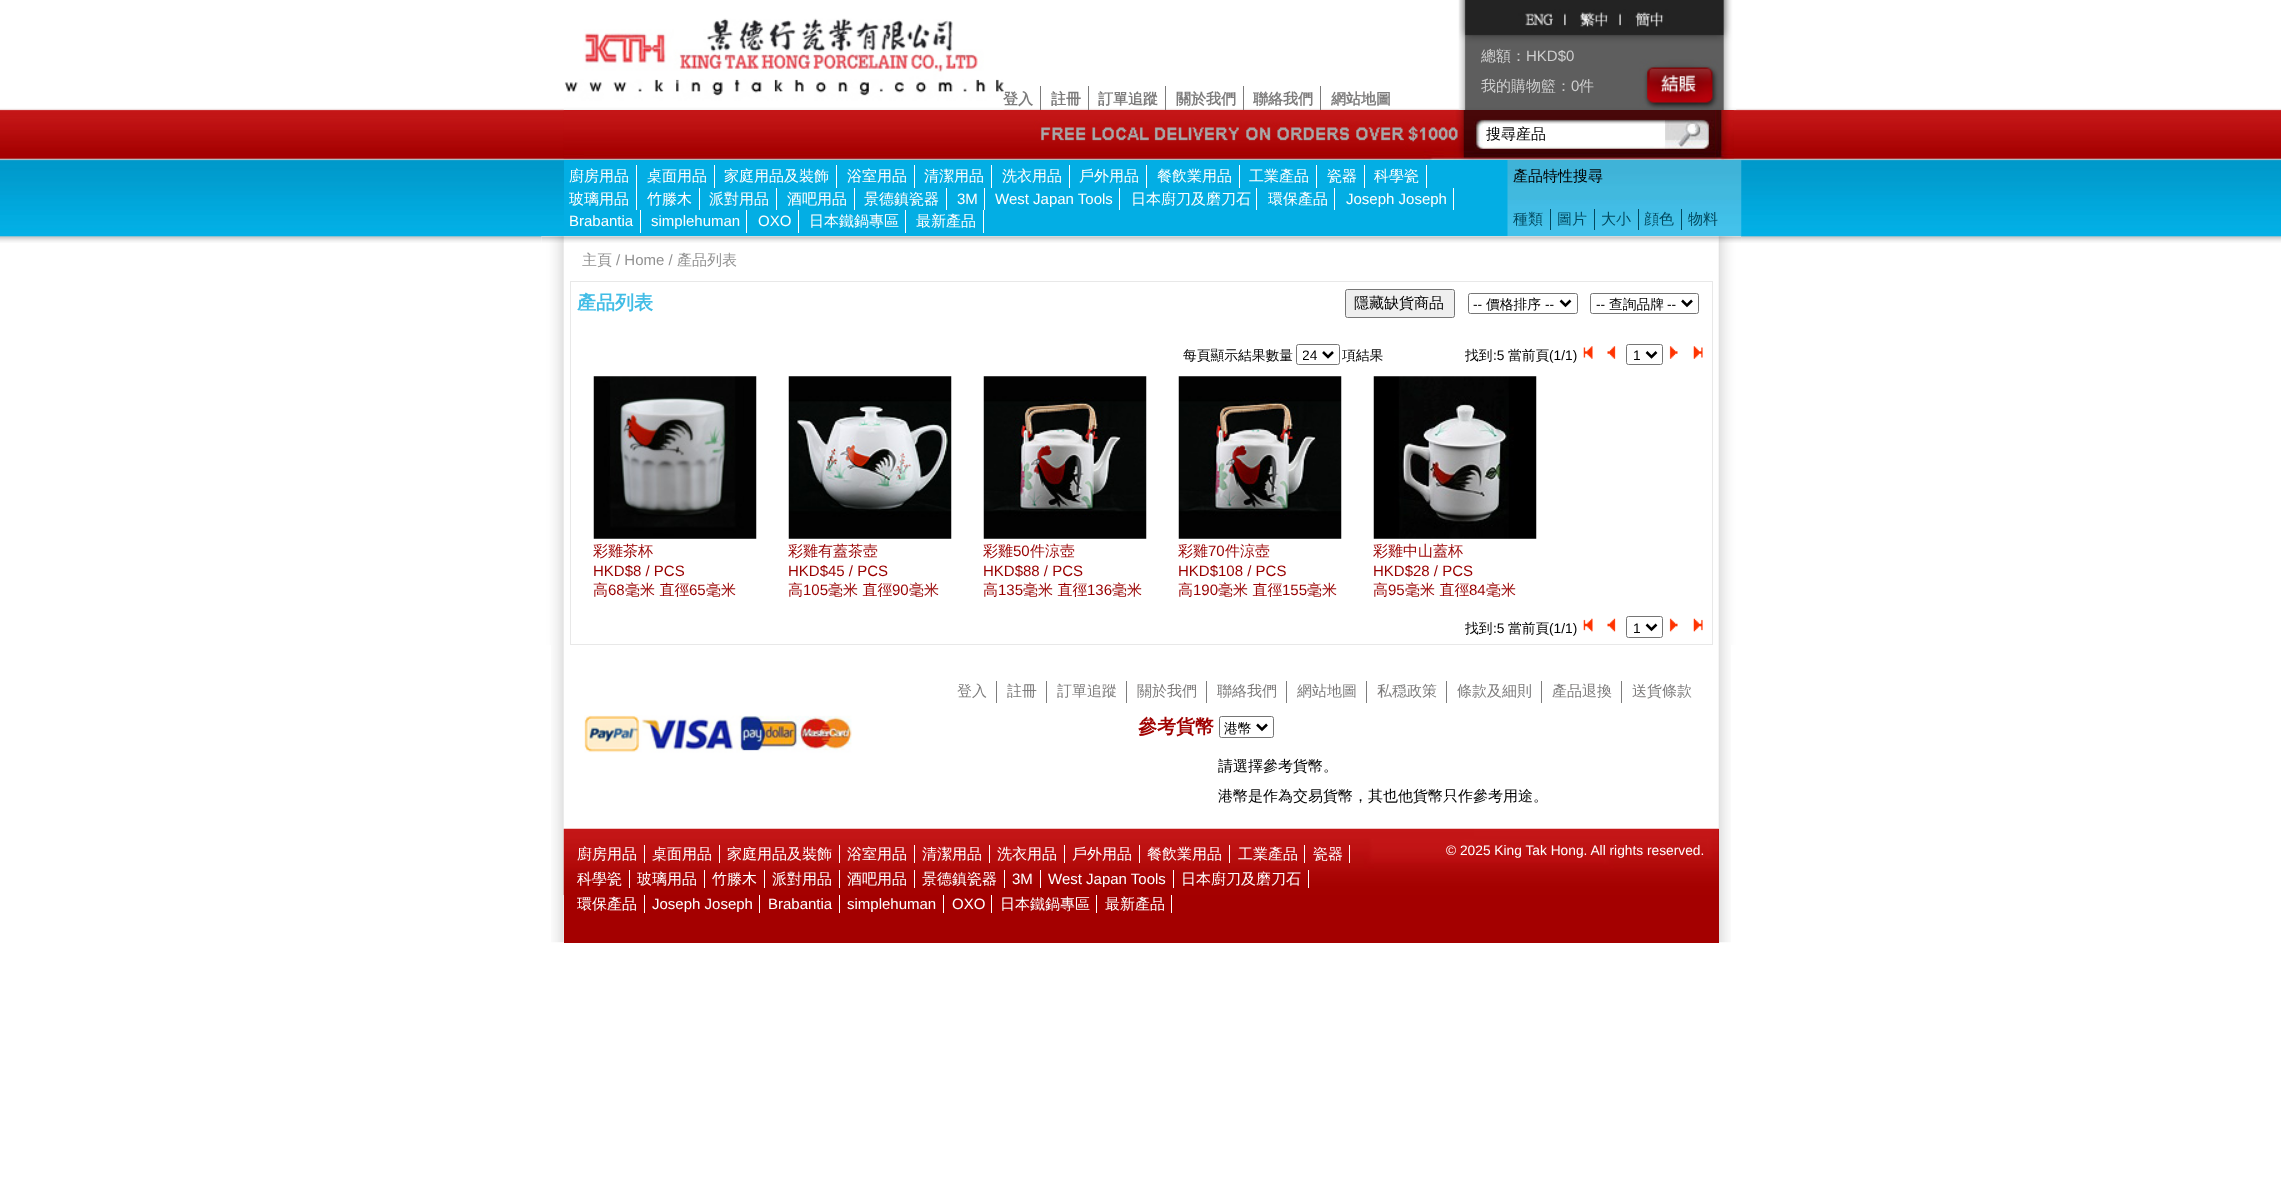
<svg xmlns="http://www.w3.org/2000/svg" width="2281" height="1195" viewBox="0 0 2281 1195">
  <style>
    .t1 { font: 500 15px WenQuanYi Zen Hei; fill: #cecece; }
    .t2 { font: 15px Liberation Sans; fill: #cecece; }
    .t3 { font: bold 15px WenQuanYi Zen Hei; fill: #7d7c7c; }
    .t4 { font: 500 15px WenQuanYi Zen Hei; fill: #000; }
    .t5 { font: 500 15px WenQuanYi Zen Hei; fill: #fff; }
    .t6 { font: 15px Liberation Sans; fill: #fff; }
    .t7 { font: 500 15px WenQuanYi Zen Hei; fill: #02495f; }
    .t8 { font: 500 15px WenQuanYi Zen Hei; fill: #919191; }
    .t9 { font: 15px Liberation Sans; fill: #919191; }
    .t10 { font: bold 19px WenQuanYi Zen Hei; fill: #42bde6; }
    .t11 { font: 13.75px Liberation Sans; fill: #000; }
    .t12 { font: 500 13.75px WenQuanYi Zen Hei; fill: #000; }
    .t13 { font: 500 15px WenQuanYi Zen Hei; fill: #900; }
    .t14 { font: 15px Liberation Sans; fill: #900; }
    .t15 { font: 500 15px WenQuanYi Zen Hei; fill: #7d7c7c; }
    .t16 { font: bold 19px WenQuanYi Zen Hei; fill: #a00201; }
    .t17 { font: 13.75px Liberation Sans; fill: #fff; }
  </style>
  <defs>
    <clipPath id="clip1"><rect x="1303" y="346" width="16" height="18"/></clipPath>
  </defs>
  <rect width="100%" height="100%" fill="#fff"/>
  <image x="0" y="108" width="2281" height="135" href="images/1.png"/>
  <image x="563" y="18" width="441" height="92" href="images/2.png"/>
  <image x="1458" y="0" width="279" height="110" href="images/3.png"/>
  <text x="1481" y="61" class="t1">總額：</text>
  <text x="1526" y="61" class="t2">HKD$0</text>
  <text x="1481" y="91" class="t1">我的購物籃：</text>
  <text x="1571" y="91" class="t2">0</text>
  <text x="1579" y="91" class="t1">件</text>
  <rect x="1040" y="86" width="1" height="24" fill="#7d7c7c"/>
  <text x="1003" y="104" class="t3">登入</text>
  <rect x="1088" y="86" width="1" height="24" fill="#7d7c7c"/>
  <text x="1051" y="104" class="t3">註冊</text>
  <rect x="1165" y="86" width="1" height="24" fill="#7d7c7c"/>
  <text x="1098" y="104" class="t3">訂單追蹤</text>
  <rect x="1243" y="86" width="1" height="24" fill="#7d7c7c"/>
  <text x="1176" y="104" class="t3">關於我們</text>
  <rect x="1320" y="86" width="1" height="24" fill="#7d7c7c"/>
  <text x="1253" y="104" class="t3">聯絡我們</text>
  <text x="1331" y="104" class="t3">網站地圖</text>
  <image x="563" y="110" width="1171" height="50" href="images/4.png"/>
  <rect x="1483" y="124" width="182" height="22" fill="#fff"/>
  <text x="1486" y="139" class="t4">搜尋産品</text>
  <rect x="564" y="160" width="944" height="75" fill="#03aee4"/>
  <text x="569" y="181" class="t5">廚房用品</text>
  <rect x="714" y="165" width="1" height="23" fill="#fff"/>
  <text x="647" y="181" class="t5">桌面用品</text>
  <rect x="836" y="165" width="1" height="23" fill="#fff"/>
  <text x="724" y="181" class="t5">家庭用品及裝飾</text>
  <rect x="914" y="165" width="1" height="23" fill="#fff"/>
  <text x="847" y="181" class="t5">浴室用品</text>
  <rect x="991" y="165" width="1" height="23" fill="#fff"/>
  <text x="924" y="181" class="t5">清潔用品</text>
  <rect x="1069" y="165" width="1" height="23" fill="#fff"/>
  <text x="1002" y="181" class="t5">洗衣用品</text>
  <rect x="1146" y="165" width="1" height="23" fill="#fff"/>
  <text x="1079" y="181" class="t5">戶外用品</text>
  <rect x="1239" y="165" width="1" height="23" fill="#fff"/>
  <text x="1157" y="181" class="t5">餐飲業用品</text>
  <rect x="1316" y="165" width="1" height="23" fill="#fff"/>
  <text x="1249" y="181" class="t5">工業產品</text>
  <rect x="1364" y="165" width="1" height="23" fill="#fff"/>
  <text x="1327" y="181" class="t5">瓷器</text>
  <rect x="1426" y="165" width="1" height="23" fill="#fff"/>
  <text x="1374" y="181" class="t5">科學瓷</text>
  <rect x="636" y="165" width="1" height="45" fill="#fff"/>
  <text x="569" y="204" class="t5">玻璃用品</text>
  <rect x="699" y="188" width="1" height="22" fill="#fff"/>
  <text x="647" y="204" class="t5">竹滕木</text>
  <rect x="776" y="188" width="1" height="22" fill="#fff"/>
  <text x="709" y="204" class="t5">派對用品</text>
  <rect x="854" y="188" width="1" height="22" fill="#fff"/>
  <text x="787" y="204" class="t5">酒吧用品</text>
  <rect x="946" y="188" width="1" height="22" fill="#fff"/>
  <text x="864" y="204" class="t5">景德鎮瓷器</text>
  <rect x="984" y="188" width="1" height="22" fill="#fff"/>
  <text x="957" y="204" class="t6">3M</text>
  <rect x="1119" y="188" width="1" height="22" fill="#fff"/>
  <text x="995" y="204" class="t6">West Japan Tools</text>
  <rect x="1256" y="188" width="1" height="22" fill="#fff"/>
  <text x="1131" y="204" class="t5">日本廚刀及磨刀石</text>
  <rect x="1334" y="188" width="1" height="22" fill="#fff"/>
  <text x="1268" y="204" class="t5">環保產品</text>
  <rect x="1453" y="188" width="1" height="22" fill="#fff"/>
  <text x="1346" y="204" class="t6">Joseph Joseph</text>
  <rect x="640" y="210" width="1" height="23" fill="#fff"/>
  <text x="569" y="226" class="t6">Brabantia</text>
  <rect x="746" y="210" width="1" height="23" fill="#fff"/>
  <text x="651" y="226" class="t6">simplehuman</text>
  <rect x="798" y="210" width="1" height="23" fill="#fff"/>
  <text x="758" y="226" class="t6">OXO</text>
  <rect x="905" y="210" width="1" height="23" fill="#fff"/>
  <text x="809" y="226" class="t5">日本鐵鍋專區</text>
  <rect x="983" y="210" width="1" height="23" fill="#fff"/>
  <text x="916" y="226" class="t5">最新產品</text>
  <image x="1507" y="160" width="235" height="77" href="images/5.png"/>
  <text x="1513" y="181" class="t4">產品特性搜尋</text>
  <rect x="1550" y="209" width="1" height="21" fill="#02495f"/>
  <text x="1513" y="224" class="t7">種類</text>
  <rect x="1594" y="209" width="1" height="21" fill="#02495f"/>
  <text x="1557" y="224" class="t7">圖片</text>
  <rect x="1638" y="209" width="1" height="21" fill="#02495f"/>
  <text x="1601" y="224" class="t7">大小</text>
  <rect x="1681" y="209" width="1" height="21" fill="#02495f"/>
  <text x="1644" y="224" class="t7">顔色</text>
  <text x="1688" y="224" class="t7">物料</text>
  <image x="541" y="236" width="1201" height="409" href="images/6.png"/>
  <image x="541" y="236" width="1200" height="7" href="images/7.png"/>
  <text x="582" y="265" class="t8">主頁</text>
  <text x="616" y="265" class="t9">/ Home /</text>
  <text x="677" y="265" class="t8">產品列表</text>
  <rect x="570.5" y="281.5" width="1142" height="363" fill="none" stroke="#e8e8e8"/>
  <text x="577" y="309" class="t10">產品列表</text>
  <rect x="1345.5" y="289.5" width="109" height="28" rx="2" fill="#efefef" stroke="#767676"/>
  <text x="1354" y="308" class="t4">隱藏缺貨商品</text>
  <rect x="1468.5" y="293.5" width="109" height="20" rx="2" fill="none" stroke="#767676"/>
  <path d="M1560.5 300.5L1565.5 305.5L1570.5 300.5" fill="none" stroke="#000" stroke-width="2.5"/>
  <text x="1473" y="309" class="t11">--</text>
  <text x="1486" y="309" class="t12">價格排序</text>
  <text x="1545" y="309" class="t11">--</text>
  <rect x="1590.5" y="293.5" width="108" height="20" rx="2" fill="none" stroke="#767676"/>
  <path d="M1682 300.5L1687 305.5L1692 300.5" fill="none" stroke="#000" stroke-width="2.5"/>
  <text x="1596" y="309" class="t11">--</text>
  <text x="1609" y="309" class="t12">查詢品牌</text>
  <text x="1667" y="309" class="t11">--</text>
  <text x="1183" y="360" class="t12">每頁顯示結果數量</text>
  <rect x="1296.5" y="344.5" width="43" height="20" rx="2" fill="none" stroke="#767676"/>
  <path d="M1323 352L1328 357L1333 352" fill="none" stroke="#000" stroke-width="2.5"/>
  <g clip-path="url(#clip1)">
    <text x="1302" y="360" class="t11">24</text>
  </g>
  <text x="1342" y="360" class="t12">項結果</text>
  <text x="1465" y="360" class="t12">找到</text>
  <text x="1493" y="360" class="t11">:5</text>
  <text x="1508" y="360" class="t12">當前頁</text>
  <text x="1549" y="360" class="t11">(1/1)</text>
  <image x="1583" y="346" width="10" height="13" href="images/8.png"/>
  <image x="1607" y="346" width="9" height="13" href="images/9.png"/>
  <rect x="1626.5" y="344.5" width="36" height="20" rx="2" fill="none" stroke="#767676"/>
  <path d="M1646.5 352L1651.5 357L1656.5 352" fill="none" stroke="#000" stroke-width="2.5"/>
  <text x="1633" y="360" class="t11">1</text>
  <image x="1669" y="346" width="9" height="13" href="images/10.png"/>
  <image x="1693" y="346" width="10" height="13" href="images/11.png"/>
  <image x="593" y="376" width="164" height="163" href="images/12.png"/>
  <text x="593" y="556" class="t13">彩雞茶杯</text>
  <text x="593" y="576" class="t14">HKD$8 / PCS</text>
  <text x="593" y="595" class="t13">高</text>
  <text x="608" y="595" class="t14">68</text>
  <text x="625" y="595" class="t13">毫米 直徑</text>
  <text x="689" y="595" class="t14">65</text>
  <text x="706" y="595" class="t13">毫米</text>
  <image x="788" y="376" width="164" height="163" href="images/13.png"/>
  <text x="788" y="556" class="t13">彩雞有蓋茶壺</text>
  <text x="788" y="576" class="t14">HKD$45 / PCS</text>
  <text x="788" y="595" class="t13">高</text>
  <text x="803" y="595" class="t14">105</text>
  <text x="828" y="595" class="t13">毫米 直徑</text>
  <text x="892" y="595" class="t14">90</text>
  <text x="909" y="595" class="t13">毫米</text>
  <image x="983" y="376" width="164" height="163" href="images/14.png"/>
  <text x="983" y="556" class="t13">彩雞</text>
  <text x="1013" y="556" class="t14">50</text>
  <text x="1030" y="556" class="t13">件涼壺</text>
  <text x="983" y="576" class="t14">HKD$88 / PCS</text>
  <text x="983" y="595" class="t13">高</text>
  <text x="998" y="595" class="t14">135</text>
  <text x="1023" y="595" class="t13">毫米 直徑</text>
  <text x="1087" y="595" class="t14">136</text>
  <text x="1112" y="595" class="t13">毫米</text>
  <image x="1178" y="376" width="164" height="163" href="images/15.png"/>
  <text x="1178" y="556" class="t13">彩雞</text>
  <text x="1208" y="556" class="t14">70</text>
  <text x="1225" y="556" class="t13">件涼壺</text>
  <text x="1178" y="576" class="t14">HKD$108 / PCS</text>
  <text x="1178" y="595" class="t13">高</text>
  <text x="1193" y="595" class="t14">190</text>
  <text x="1218" y="595" class="t13">毫米 直徑</text>
  <text x="1282" y="595" class="t14">155</text>
  <text x="1307" y="595" class="t13">毫米</text>
  <image x="1373" y="376" width="164" height="163" href="images/16.png"/>
  <text x="1373" y="556" class="t13">彩雞中山蓋杯</text>
  <text x="1373" y="576" class="t14">HKD$28 / PCS</text>
  <text x="1373" y="595" class="t13">高</text>
  <text x="1388" y="595" class="t14">95</text>
  <text x="1405" y="595" class="t13">毫米 直徑</text>
  <text x="1469" y="595" class="t14">84</text>
  <text x="1486" y="595" class="t13">毫米</text>
  <text x="1465" y="633" class="t12">找到</text>
  <text x="1493" y="633" class="t11">:5</text>
  <text x="1508" y="633" class="t12">當前頁</text>
  <text x="1549" y="633" class="t11">(1/1)</text>
  <image x="1583" y="618" width="10" height="14" href="images/17.png"/>
  <image x="1607" y="618" width="9" height="14" href="images/18.png"/>
  <rect x="1626.5" y="616.5" width="36" height="21" rx="2" fill="none" stroke="#767676"/>
  <path d="M1646.5 624.5L1651.5 629.5L1656.5 624.5" fill="none" stroke="#000" stroke-width="2.5"/>
  <text x="1633" y="633" class="t11">1</text>
  <image x="1669" y="618" width="9" height="14" href="images/19.png"/>
  <image x="1693" y="618" width="10" height="14" href="images/20.png"/>
  <image x="551" y="645" width="1180" height="298" href="images/21.png"/>
  <rect x="996" y="681" width="1" height="22" fill="#7d7c7c"/>
  <text x="957" y="696" class="t15">登入</text>
  <rect x="1046" y="681" width="1" height="22" fill="#7d7c7c"/>
  <text x="1007" y="696" class="t15">註冊</text>
  <rect x="1126" y="681" width="1" height="22" fill="#7d7c7c"/>
  <text x="1057" y="696" class="t15">訂單追蹤</text>
  <rect x="1206" y="681" width="1" height="22" fill="#7d7c7c"/>
  <text x="1137" y="696" class="t15">關於我們</text>
  <rect x="1286" y="681" width="1" height="22" fill="#7d7c7c"/>
  <text x="1217" y="696" class="t15">聯絡我們</text>
  <rect x="1366" y="681" width="1" height="22" fill="#7d7c7c"/>
  <text x="1297" y="696" class="t15">網站地圖</text>
  <rect x="1446" y="681" width="1" height="22" fill="#7d7c7c"/>
  <text x="1377" y="696" class="t15">私穏政策</text>
  <rect x="1541" y="681" width="1" height="22" fill="#7d7c7c"/>
  <text x="1457" y="696" class="t15">條款及細則</text>
  <rect x="1621" y="681" width="1" height="22" fill="#7d7c7c"/>
  <text x="1552" y="696" class="t15">產品退換</text>
  <text x="1632" y="696" class="t15">送貨條款</text>
  <image x="584" y="715" width="268" height="38" href="images/22.png"/>
  <text x="1138" y="733" class="t16">參考貨幣</text>
  <rect x="1219.5" y="716.5" width="54" height="21" rx="2" fill="none" stroke="#767676"/>
  <path d="M1257 724.5L1262 729.5L1267 724.5" fill="none" stroke="#000" stroke-width="2.5"/>
  <text x="1224" y="733" class="t12">港幣</text>
  <text x="1218" y="771" class="t4">請選擇參考貨幣。</text>
  <text x="1218" y="801" class="t4">港幣是作為交易貨幣，其也他貨幣只作參考用途。</text>
  <rect x="564" y="829" width="1155" height="114" fill="#a40000"/>
  <image x="563" y="828" width="1156" height="67" href="images/23.png"/>
  <text x="577" y="859" class="t5">廚房用品</text>
  <rect x="644" y="845" width="1" height="18" fill="#fff"/>
  <text x="652" y="859" class="t5">桌面用品</text>
  <rect x="719" y="845" width="1" height="18" fill="#fff"/>
  <text x="727" y="859" class="t5">家庭用品及裝飾</text>
  <rect x="839" y="845" width="1" height="18" fill="#fff"/>
  <text x="847" y="859" class="t5">浴室用品</text>
  <rect x="914" y="845" width="1" height="18" fill="#fff"/>
  <text x="922" y="859" class="t5">清潔用品</text>
  <rect x="989" y="845" width="1" height="18" fill="#fff"/>
  <text x="997" y="859" class="t5">洗衣用品</text>
  <rect x="1064" y="845" width="1" height="18" fill="#fff"/>
  <text x="1072" y="859" class="t5">戶外用品</text>
  <rect x="1139" y="845" width="1" height="18" fill="#fff"/>
  <text x="1147" y="859" class="t5">餐飲業用品</text>
  <rect x="1229" y="845" width="1" height="18" fill="#fff"/>
  <text x="1238" y="859" class="t5">工業產品</text>
  <rect x="1304" y="845" width="1" height="18" fill="#fff"/>
  <text x="1313" y="859" class="t5">瓷器</text>
  <rect x="1349" y="845" width="1" height="18" fill="#fff"/>
  <text x="577" y="884" class="t5">科學瓷</text>
  <rect x="629" y="870" width="1" height="18" fill="#fff"/>
  <text x="637" y="884" class="t5">玻璃用品</text>
  <rect x="704" y="870" width="1" height="18" fill="#fff"/>
  <text x="712" y="884" class="t5">竹滕木</text>
  <rect x="764" y="870" width="1" height="18" fill="#fff"/>
  <text x="772" y="884" class="t5">派對用品</text>
  <rect x="839" y="870" width="1" height="18" fill="#fff"/>
  <text x="847" y="884" class="t5">酒吧用品</text>
  <rect x="914" y="870" width="1" height="18" fill="#fff"/>
  <text x="922" y="884" class="t5">景德鎮瓷器</text>
  <rect x="1004" y="870" width="1" height="18" fill="#fff"/>
  <text x="1012" y="884" class="t6">3M</text>
  <rect x="1040" y="870" width="1" height="18" fill="#fff"/>
  <text x="1048" y="884" class="t6">West Japan Tools</text>
  <rect x="1173" y="870" width="1" height="18" fill="#fff"/>
  <text x="1181" y="884" class="t5">日本廚刀及磨刀石</text>
  <rect x="1308" y="870" width="1" height="18" fill="#fff"/>
  <text x="577" y="909" class="t5">環保產品</text>
  <rect x="644" y="895" width="1" height="18" fill="#fff"/>
  <text x="652" y="909" class="t6">Joseph Joseph</text>
  <rect x="759" y="895" width="1" height="18" fill="#fff"/>
  <text x="768" y="909" class="t6">Brabantia</text>
  <rect x="839" y="895" width="1" height="18" fill="#fff"/>
  <text x="847" y="909" class="t6">simplehuman</text>
  <rect x="943" y="895" width="1" height="18" fill="#fff"/>
  <text x="952" y="909" class="t6">OXO</text>
  <rect x="991" y="895" width="1" height="18" fill="#fff"/>
  <text x="1000" y="909" class="t5">日本鐵鍋專區</text>
  <rect x="1096" y="895" width="1" height="18" fill="#fff"/>
  <text x="1105" y="909" class="t5">最新產品</text>
  <rect x="1171" y="895" width="1" height="18" fill="#fff"/>
  <text x="1446" y="855" class="t17">© 2025 King Tak Hong. All rights reserved.</text>
</svg>
